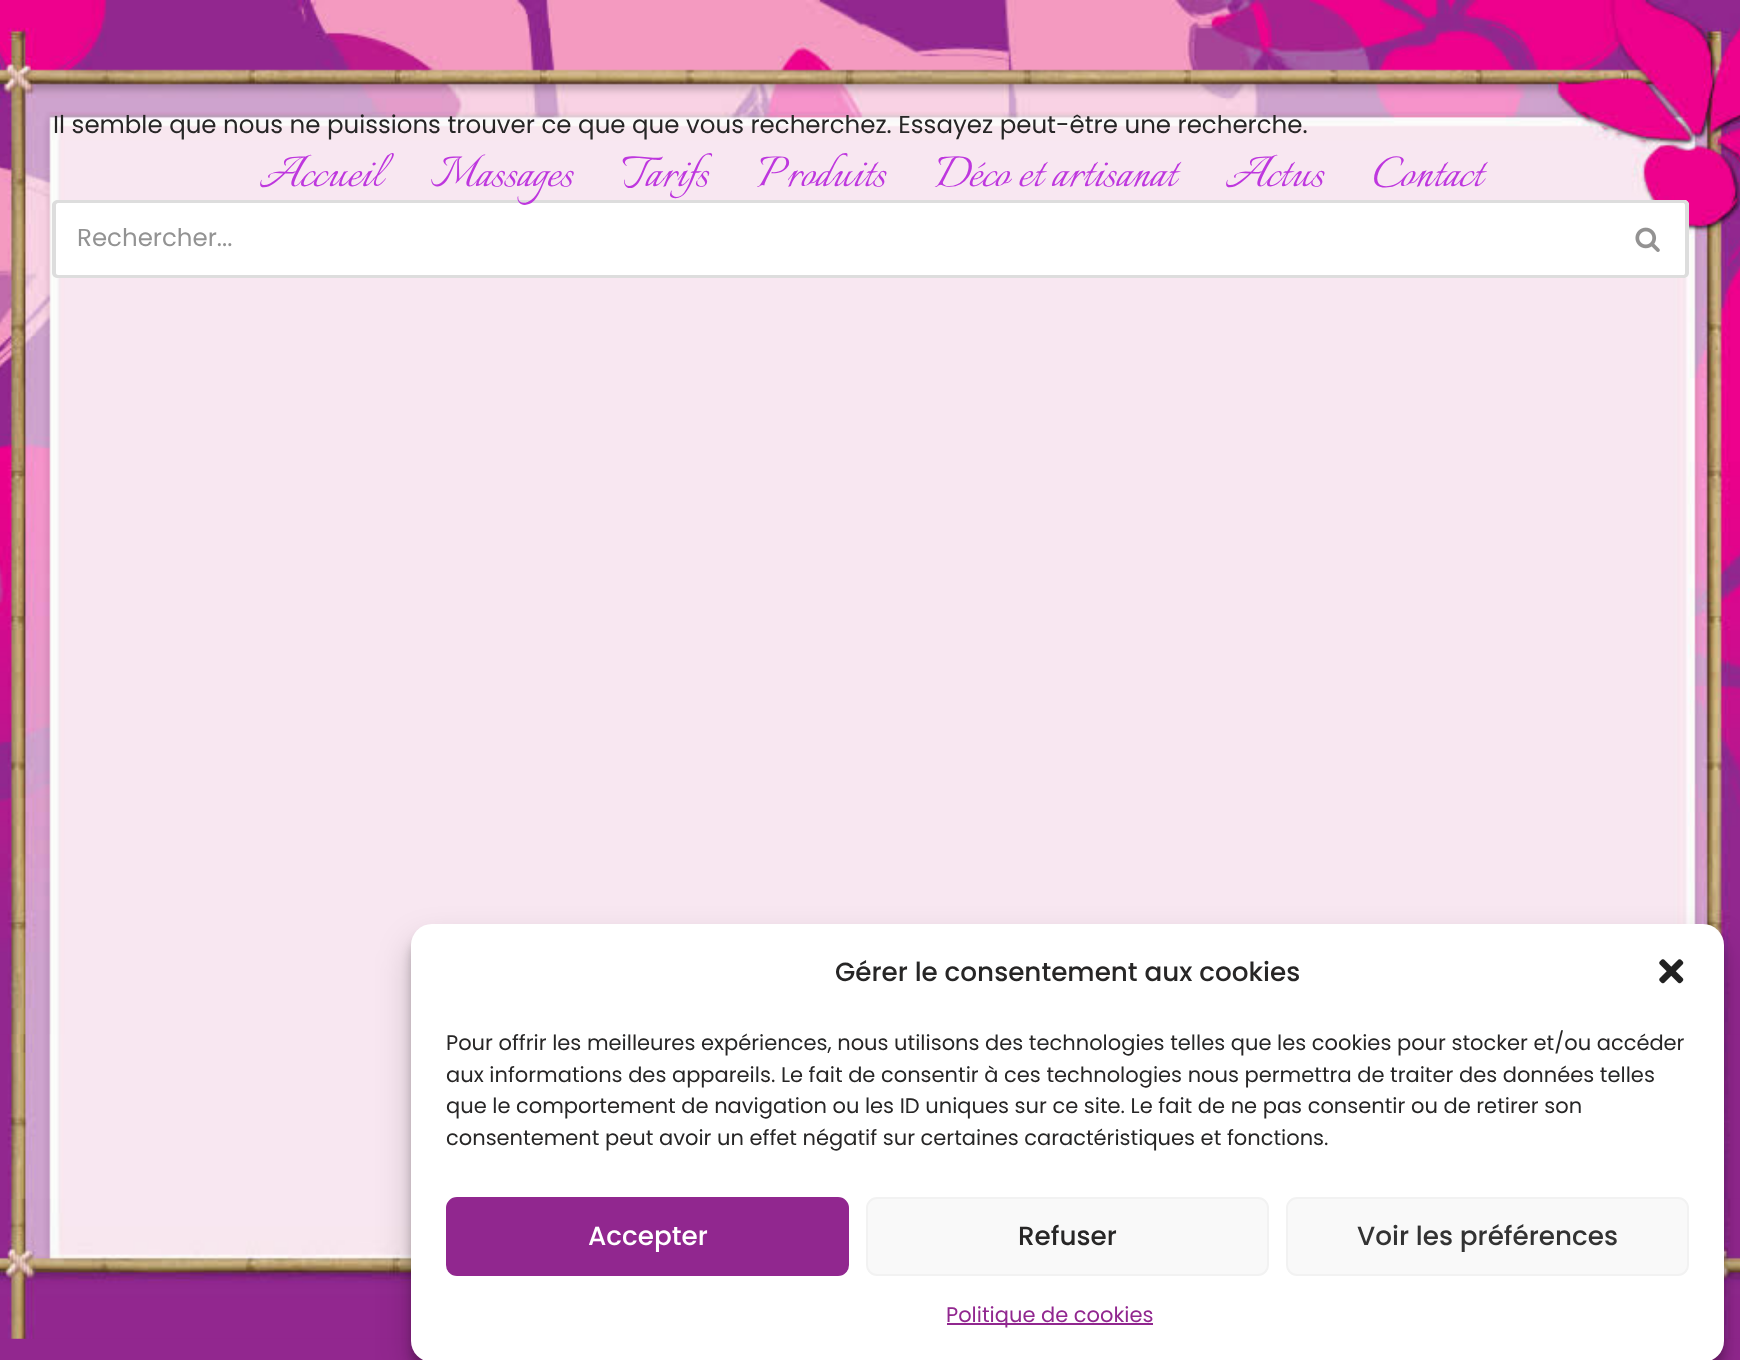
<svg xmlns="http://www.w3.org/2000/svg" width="1740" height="1360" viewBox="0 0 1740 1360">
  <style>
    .t1 { font: 24.5px Poppins; fill: #272626; }
    .t2 { font: 24.5px Poppins; fill: #939393; }
    .t3 { font: 54px Italianno; fill: #be37de; }
    .t4 { font: 500 26.25px Poppins; fill: #272626; }
    .t5 { font: 21px Poppins; fill: #272626; }
    .t6 { font: 500 26.25px Poppins; fill: #fff; }
    .t7 { font: 500 26.25px Poppins; fill: #333; }
    .t8 { font: 21px Poppins; fill: #91278f; }
  </style>
  <rect width="100%" height="100%" fill="#fff"/>
  <image x="0" y="1034" width="1740" height="165" href="images/1.png"/>
  <image x="0" y="0" width="1740" height="1035" href="images/3.png"/>
  <text x="53" y="133" class="t1">Il semble que nous ne puissions trouver ce que que vous recherchez. Essayez peut-être une recherche.</text>
  <path d="M58 200H1610V278H58C55 278 53 276 53 273V205C53 202 55 200 58 200Z" fill="#fff"/>
  <path d="M58 200H1610V278H58C55 278 52 276 52 273V205C52 202 55 200 58 200ZM58 203H1610V275H58C57 275 56 274 56 273V205C56 204 57 203 58 203Z" fill="#ddd" fill-rule="evenodd"/>
  <text x="77" y="246" class="t2">Rechercher...</text>
  <path d="M1610 200H1684C1687 200 1689 202 1689 205V273C1689 276 1687 278 1684 278H1610Z" fill="#fff"/>
  <path d="M1610 200H1684C1686 200 1689 202 1689 205V273C1689 276 1686 278 1684 278H1610ZM1610 203H1684C1684 203 1685 204 1685 205V273C1685 274 1684 275 1684 275H1610Z" fill="#ddd" fill-rule="evenodd"/>
  <image x="1635" y="227" width="25" height="25" href="images/2.png"/>
  <text x="259" y="186" class="t3">Accueil</text>
  <text x="431" y="186" class="t3">Massages</text>
  <text x="622" y="186" class="t3">Tarifs</text>
  <text x="757" y="186" class="t3">Produits</text>
  <text x="935" y="186" class="t3">Déco et artisanat</text>
  <text x="1225" y="186" class="t3">Actus</text>
  <text x="1372" y="186" class="t3">Contact</text>
  <rect x="0" y="1338" width="1740" height="22" fill="#92278f"/>
  <image x="0" y="1198" width="1740" height="141" href="images/4.png"/>
  <rect x="411" y="935" width="1313" height="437" rx="21" fill="#0000003b" filter="blur(5px)"/>
  <rect x="411" y="942" width="1313" height="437" rx="21" fill="#00000030" filter="blur(17.5px)"/>
  <rect x="411" y="924" width="1313" height="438" rx="21" fill="#fff"/>
  <text x="835" y="981" class="t4">Gérer le consentement aux cookies</text>
  <image x="1659" y="959" width="25" height="25" href="images/5.png"/>
  <text x="446" y="1050" class="t5">Pour offrir les meilleures expériences, nous utilisons des technologies telles que les cookies pour stocker et/ou accéder</text>
  <text x="446" y="1082" class="t5">aux informations des appareils. Le fait de consentir à ces technologies nous permettra de traiter des données telles</text>
  <text x="446" y="1113" class="t5">que le comportement de navigation ou les ID uniques sur ce site. Le fait de ne pas consentir ou de retirer son</text>
  <text x="446" y="1145" class="t5">consentement peut avoir un effet négatif sur certaines caractéristiques et fonctions.</text>
  <rect x="447" y="1198" width="401" height="77" rx="10" fill="#91278f" stroke="#91278f" stroke-width="2"/>
  <text x="588" y="1245" class="t6">Accepter</text>
  <rect x="867" y="1198" width="401" height="77" rx="10" fill="#f9f9f9" stroke="#f2f2f2" stroke-width="2"/>
  <text x="1018" y="1245" class="t4">Refuser</text>
  <rect x="1287" y="1198" width="401" height="77" rx="10" fill="#f9f9f9" stroke="#f2f2f2" stroke-width="2"/>
  <text x="1357" y="1245" class="t7">Voir les préférences</text>
  <rect x="947" y="1323" width="206" height="2" fill="#91278f"/>
  <text x="946" y="1322" class="t8">Politique de cookies</text>
</svg>
